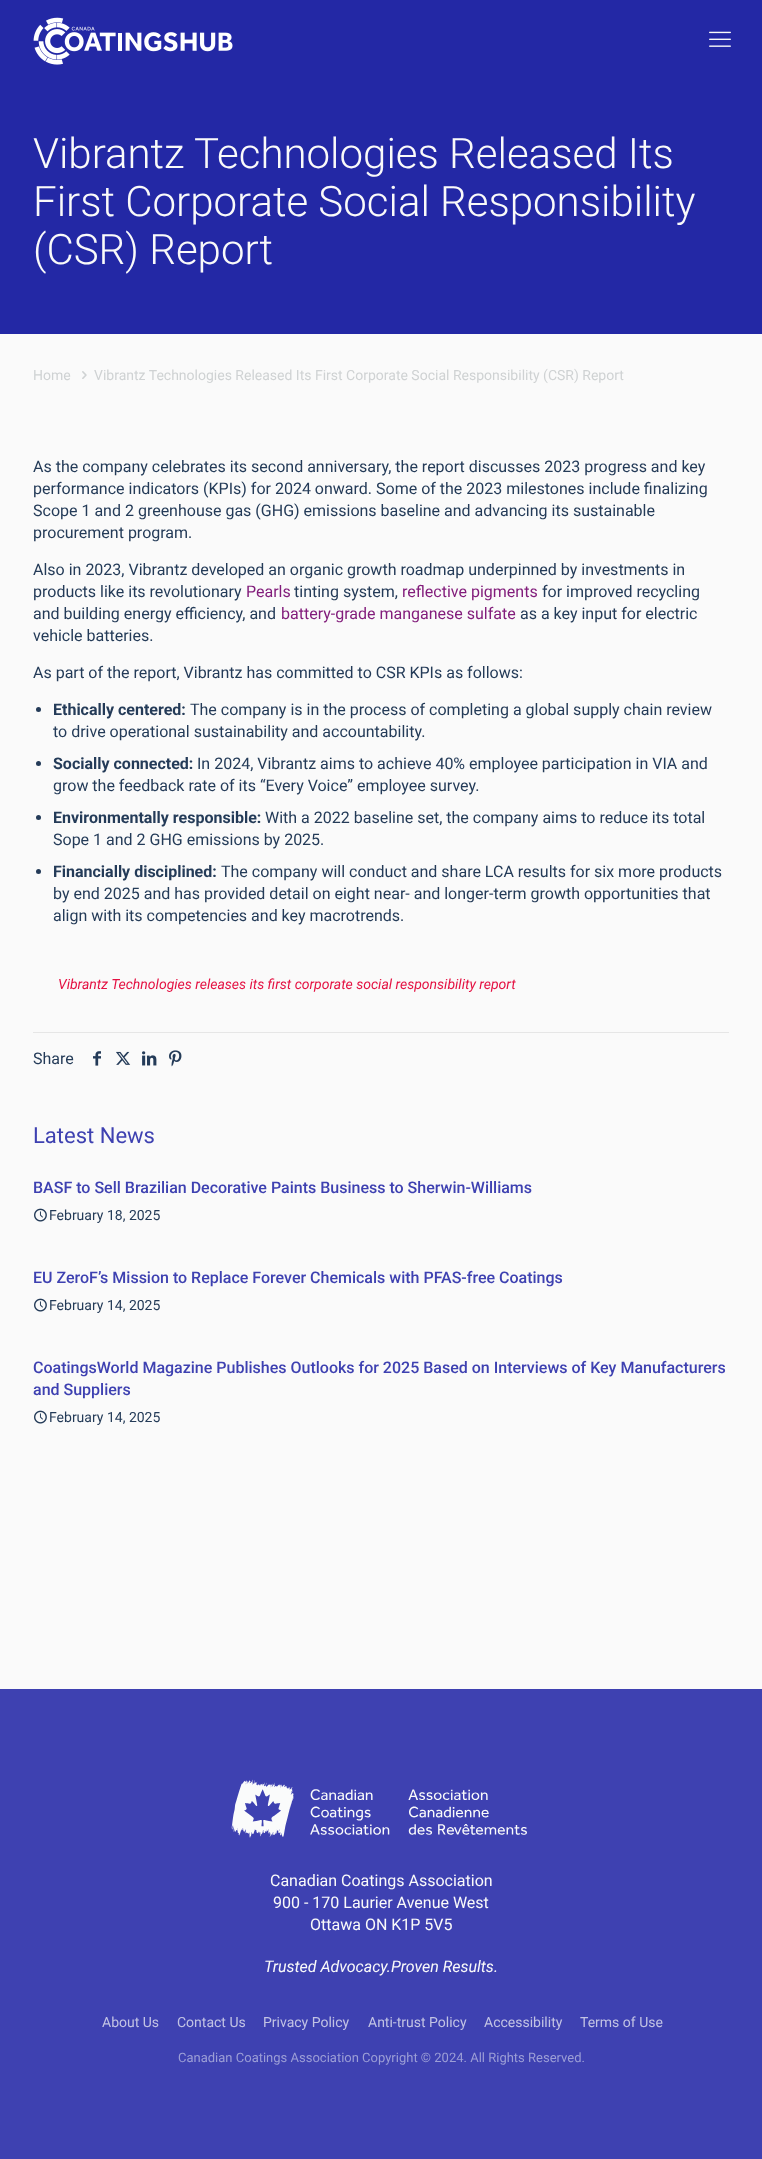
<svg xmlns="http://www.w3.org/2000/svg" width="762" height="2159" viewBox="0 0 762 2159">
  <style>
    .t1 { font: 300 42px Roboto; fill: #fafafa; }
    .t2 { font: 14px Roboto; fill: #cfd2d3; }
    .t3 { font: 16px Roboto; fill: #243b58; }
    .t4 { font: 16px Roboto; fill: #821d7b; }
    .t5 { font: bold 16px Roboto; fill: #243b58; }
    .t6 { font: italic 14px Roboto; fill: #e41142; }
    .t7 { font: 22px Roboto; fill: #3e41b1; }
    .t8 { font: 500 16px Roboto; fill: #3e41b1; }
    .t9 { font: 14px Roboto; fill: #243b58; }
    .t10 { font: 16px Roboto; fill: #fafafa; }
    .t11 { font: italic 16px Roboto; fill: #fafafa; }
    .t12 { font: 14px Roboto; fill: #c2c3e4; }
    .t13 { font: 13px Roboto; fill: #9c9ed6; }
  </style>
  <rect width="100%" height="100%" fill="#fafafa"/>
  <rect x="0" y="0" width="762" height="334" fill="#2328a5"/>
  <image x="33" y="17" width="200" height="48" href="images/1.png"/>
  <image x="709" y="31" width="22" height="16" href="images/2.png"/>
  <text x="33" y="168" class="t1">Vibrantz Technologies Released Its</text>
  <text x="33" y="216" class="t1">First Corporate Social Responsibility</text>
  <text x="33" y="264" class="t1">(CSR) Report</text>
  <text x="33" y="380" class="t2">Home</text>
  <image x="82" y="371" width="5" height="8" href="images/3.png"/>
  <text x="94" y="380" class="t2">Vibrantz Technologies Released Its First Corporate Social Responsibility (CSR) Report</text>
  <text x="33" y="472" class="t3">As the company celebrates its second anniversary, the report discusses 2023 progress and key</text>
  <text x="33" y="494" class="t3">performance indicators (KPIs) for 2024 onward. Some of the 2023 milestones include finalizing</text>
  <text x="33" y="516" class="t3">Scope 1 and 2 greenhouse gas (GHG) emissions baseline and advancing its sustainable</text>
  <text x="33" y="538" class="t3">procurement program.</text>
  <text x="33" y="575" class="t3">Also in 2023, Vibrantz developed an organic growth roadmap underpinned by investments in</text>
  <text x="33" y="597" class="t3">products like its revolutionary</text>
  <text x="246" y="597" class="t4">Pearls</text>
  <text x="294" y="597" class="t3">tinting system,</text>
  <text x="402" y="597" class="t4">reflective pigments</text>
  <text x="542" y="597" class="t3">for improved recycling</text>
  <text x="33" y="619" class="t3">and building energy efficiency, and</text>
  <text x="281" y="619" class="t4">battery-grade manganese sulfate</text>
  <text x="520" y="619" class="t3">as a key input for electric</text>
  <text x="33" y="641" class="t3">vehicle batteries.</text>
  <text x="33" y="678" class="t3">As part of the report, Vibrantz has committed to CSR KPIs as follows:</text>
  <circle cx="38.5" cy="709.5" r="2.5" fill="#243b58"/>
  <text x="53" y="715" class="t5">Ethically centered:</text>
  <text x="190" y="715" class="t3">The company is in the process of completing a global supply chain review</text>
  <text x="53" y="737" class="t3">to drive operational sustainability and accountability.</text>
  <circle cx="38.5" cy="763.5" r="2.5" fill="#243b58"/>
  <text x="53" y="769" class="t5">Socially connected:</text>
  <text x="197" y="769" class="t3">In 2024, Vibrantz aims to achieve 40% employee participation in VIA and</text>
  <text x="53" y="791" class="t3">grow the feedback rate of its “Every Voice” employee survey.</text>
  <circle cx="38.5" cy="817.5" r="2.5" fill="#243b58"/>
  <text x="53" y="823" class="t5">Environmentally responsible:</text>
  <text x="265" y="823" class="t3">With a 2022 baseline set, the company aims to reduce its total</text>
  <text x="53" y="845" class="t3">Sope 1 and 2 GHG emissions by 2025.</text>
  <circle cx="38.5" cy="871.5" r="2.5" fill="#243b58"/>
  <text x="53" y="877" class="t5">Financially disciplined:</text>
  <text x="221" y="877" class="t3">The company will conduct and share LCA results for six more products</text>
  <text x="53" y="899" class="t3">by end 2025 and has provided detail on eight near- and longer-term growth opportunities that</text>
  <text x="53" y="921" class="t3">align with its competencies and key macrotrends.</text>
  <text x="58" y="989" class="t6">Vibrantz Technologies releases its first corporate social responsibility report</text>
  <rect x="33" y="1032" width="696" height="1" fill="#e6e6e6"/>
  <text x="33" y="1064" class="t3">Share</text>
  <image x="93" y="1051" width="8" height="15" href="images/4.png"/>
  <image x="116" y="1051" width="15" height="14" href="images/5.png"/>
  <image x="142" y="1051" width="15" height="15" href="images/6.png"/>
  <image x="169" y="1050" width="13" height="17" href="images/7.png"/>
  <text x="33" y="1143" class="t7">Latest News</text>
  <text x="33" y="1193" class="t8">BASF to Sell Brazilian Decorative Paints Business to Sherwin-Williams</text>
  <image x="34" y="1208" width="13" height="14" href="images/8.png"/>
  <text x="49" y="1220" class="t9">February 18, 2025</text>
  <text x="33" y="1283" class="t8">EU ZeroF’s Mission to Replace Forever Chemicals with PFAS-free Coatings</text>
  <image x="34" y="1298" width="13" height="14" href="images/8.png"/>
  <text x="49" y="1310" class="t9">February 14, 2025</text>
  <text x="33" y="1373" class="t8">CoatingsWorld Magazine Publishes Outlooks for 2025 Based on Interviews of Key Manufacturers</text>
  <text x="33" y="1395" class="t8">and Suppliers</text>
  <image x="34" y="1410" width="13" height="14" href="images/8.png"/>
  <text x="49" y="1422" class="t9">February 14, 2025</text>
  <rect x="0" y="1689" width="762" height="470" fill="#3e41b1"/>
  <image x="231" y="1779" width="296" height="59" href="images/9.png"/>
  <text x="270" y="1886" class="t10">Canadian Coatings Association</text>
  <text x="273" y="1908" class="t10">900 - 170 Laurier Avenue West</text>
  <text x="310" y="1930" class="t10">Ottawa ON K1P 5V5</text>
  <text x="264" y="1972" class="t11">Trusted Advocacy.Proven Results.</text>
  <text x="102" y="2027" class="t12">About Us</text>
  <text x="177" y="2027" class="t12">Contact Us</text>
  <text x="263" y="2027" class="t12">Privacy Policy</text>
  <text x="368" y="2027" class="t12">Anti-trust Policy</text>
  <text x="484" y="2027" class="t12">Accessibility</text>
  <text x="580" y="2027" class="t12">Terms of Use</text>
  <text x="178" y="2062" class="t13">Canadian Coatings Association Copyright © 2024. All Rights Reserved.</text>
</svg>
